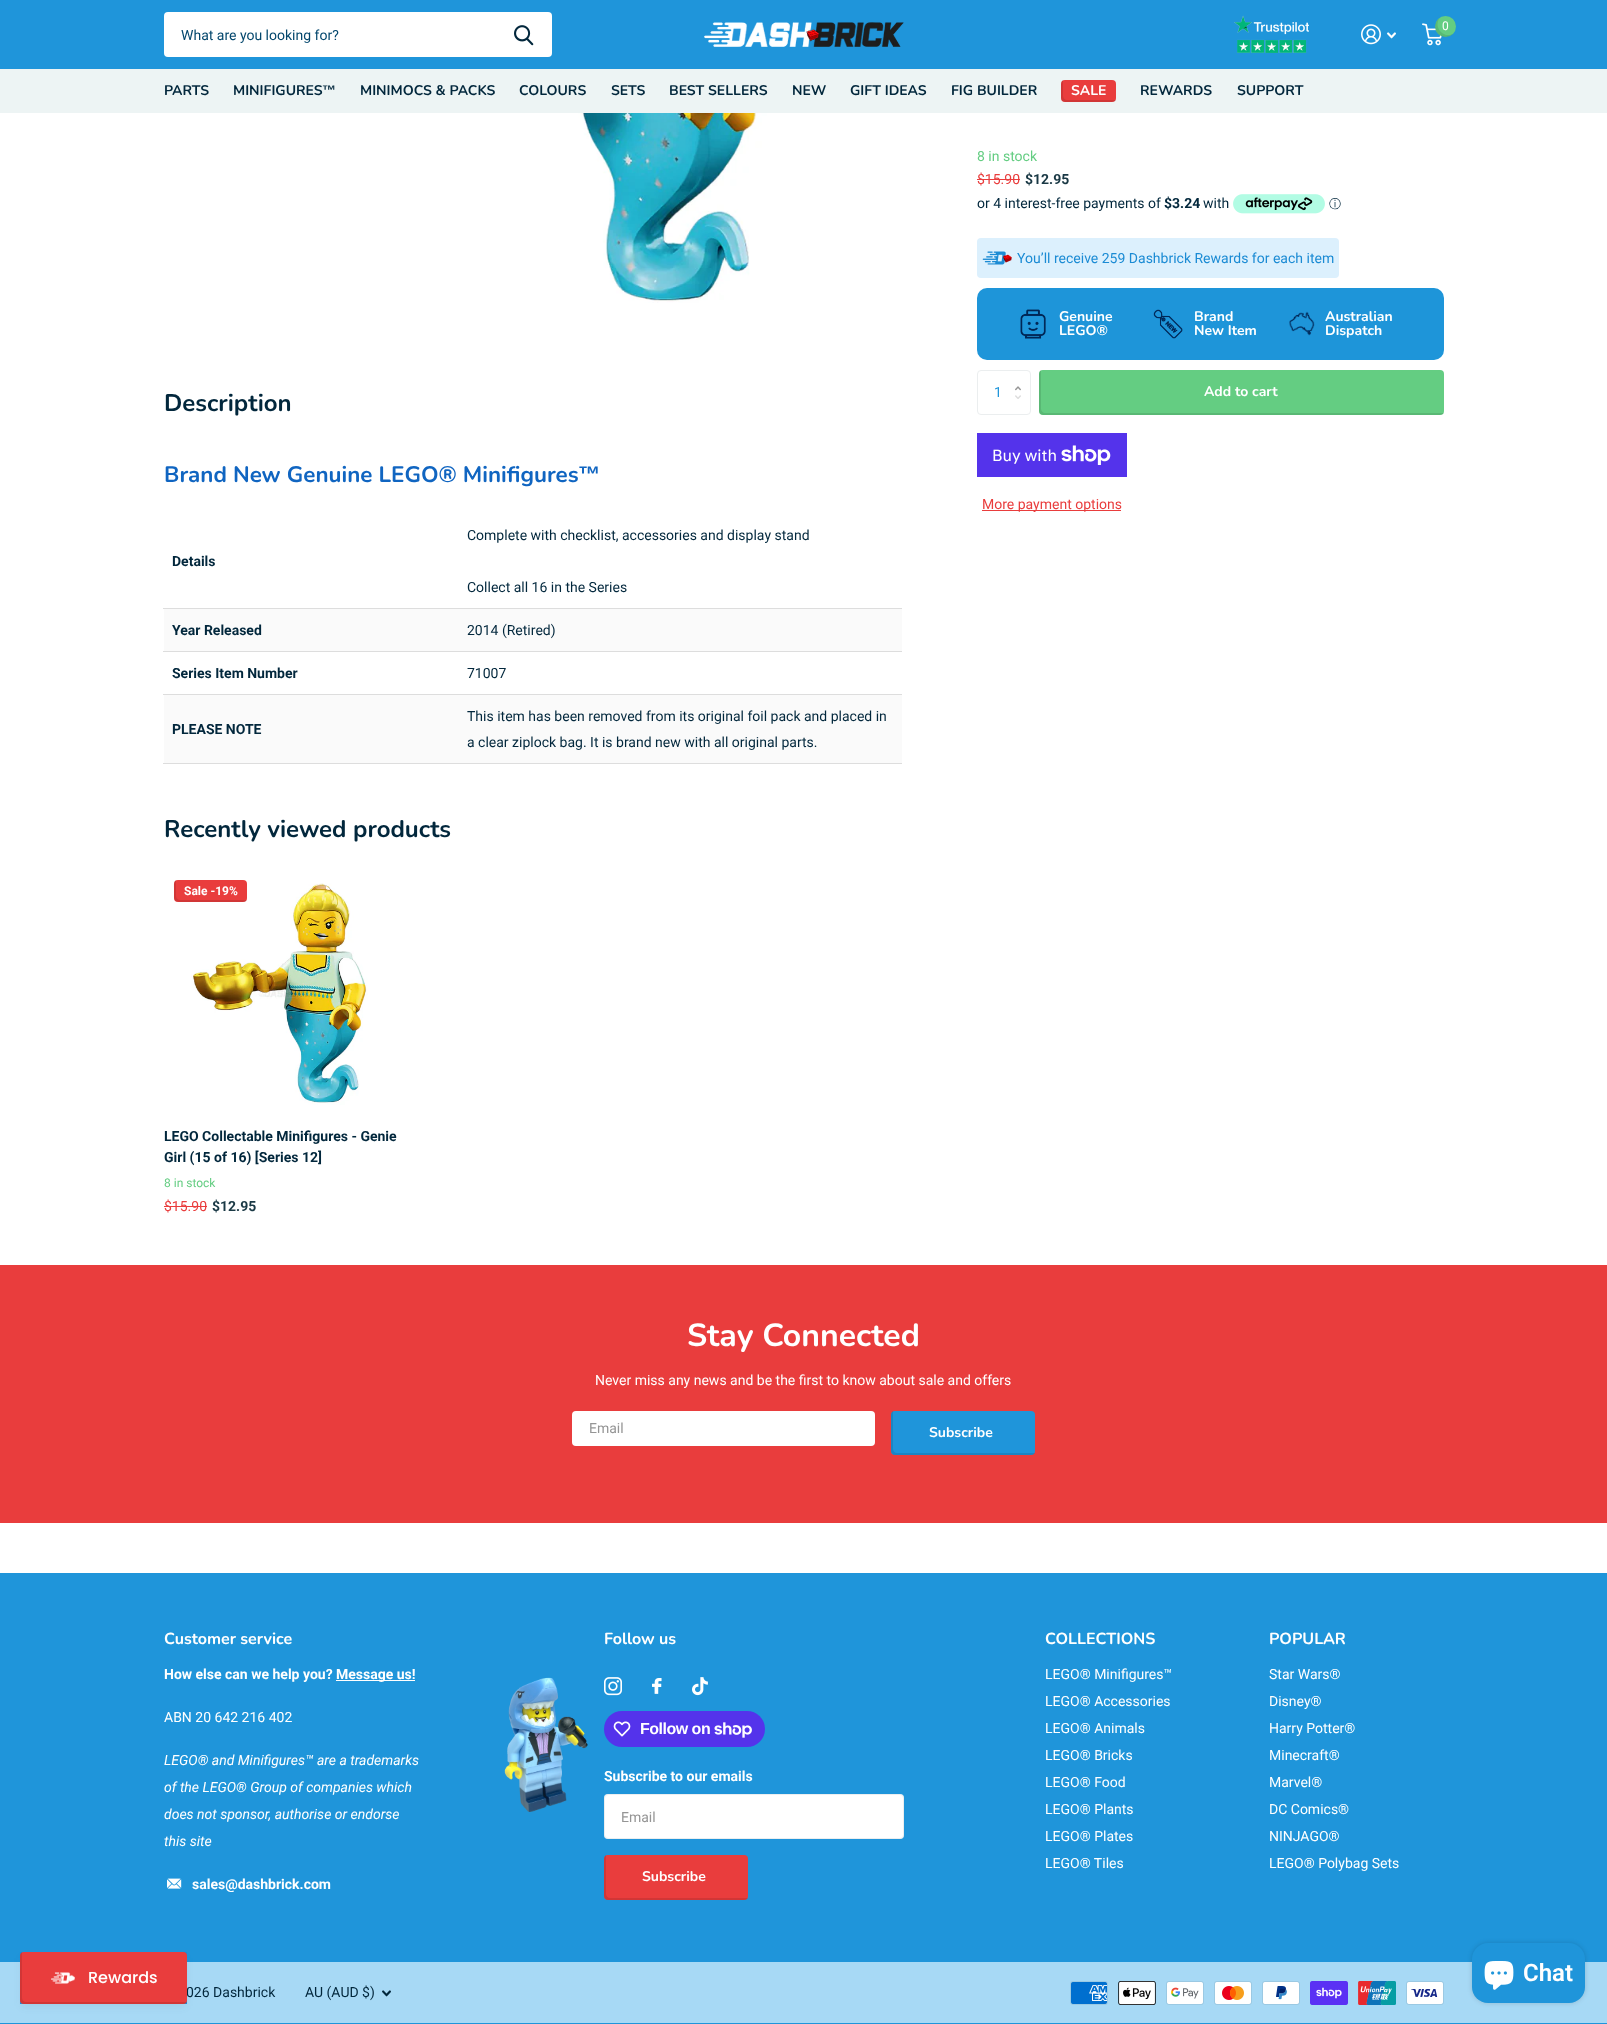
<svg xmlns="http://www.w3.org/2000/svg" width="1607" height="2024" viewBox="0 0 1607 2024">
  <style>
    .t1 { font: 14px Roboto; fill: #02273c; }
    .t2 { font: 500 16px Poppins; fill: #fff; }
    .t3 { font: 14px Roboto; fill: #04476d; }
    .t4 { font: 12px Roboto; fill: #fff; }
    .t5 { font: bold 14px Nunito; fill: #02273c; }
    .t6 { font: bold 14px Liberation Sans; fill: #02273c; }
    .t7 { font: bold 14px Nunito; fill: #fff; }
    .t8 { font: 14px Roboto; fill: #64cd82; }
    .t9 { font: 14px Roboto; fill: #e93d3d; }
    .t10 { font: bold 14px Roboto; fill: #1a3945; }
    .t11 { font: bold 14px Roboto; fill: #02273c; }
    .t12 { font: 500 12px WenQuanYi Zen Hei; fill: #02273c; }
    .t13 { font: 14px Roboto; fill: #1b8bd4; }
    .t14 { font: 14px Roboto; fill: #1f95da; }
    .t15 { font: 16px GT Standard; fill: #fff; }
    .t16 { font: bold 24px Nunito; fill: #02273c; }
    .t17 { font: bold 22.4px Nunito; fill: #1065c1; }
    .t18 { font: bold 22.4px Liberation Sans; fill: #1065c1; }
    .t19 { font: bold 12px Roboto; fill: #fff; }
    .t20 { font: 12px Roboto; fill: #64cd82; }
    .t21 { font: bold 32px Nunito; fill: #fff; }
    .t22 { font: 14px Roboto; fill: #fff; }
    .t23 { font: 14px Roboto; fill: #959595; }
    .t24 { font: bold 16px Nunito; fill: #fff; }
    .t25 { font: bold 14px Roboto; fill: #fff; }
    .t26 { font: italic 14px Roboto; fill: #fff; }
    .t27 { font: bold 16px Liberation Sans; letter-spacing: -0.5px; fill: #fff; }
    .t28 { font: 600 24px Roboto; fill: #fff; }
  </style>
  <rect width="100%" height="100%" fill="#fff"/>
  <rect x="0" y="1573" width="1607" height="451" fill="#1f95da"/>
  <rect x="0" y="1962" width="1607" height="61" fill="#a7d9f5"/>
  <rect x="22" y="1958" width="163" height="48" fill="#44444414" filter="blur(4px)"/>
  <text x="186" y="1997" class="t1">026 Dashbrick</text>
  <rect x="20" y="1952" width="167" height="52" fill="#1c8bd4"/>
  <rect x="20" y="1952" width="167" height="52" rx="4" fill="#e93d3d"/>
  <path d="M22 1952C21 1953 20 1954 20 1956V2000C20 2002 22 2004 24 2004H183C185 2004 186 2003 187 2002H185H26C24 2002 22 2000 22 1998V1954Z" fill="#0000001a"/>
  <image x="51" y="1972" width="24" height="12" href="images/1.png"/>
  <text x="88" y="1983" class="t2">Rewards</text>
  <rect x="0" y="0" width="1607" height="69" fill="#1f95da"/>
  <rect x="164" y="12" width="388" height="45" rx="4" fill="#fff"/>
  <text x="181" y="40" class="t3">What are you looking for?</text>
  <image x="514" y="25" width="20" height="21" href="images/2.png"/>
  <image x="704" y="22" width="200" height="25" href="images/3.png"/>
  <image x="1234" y="15" width="75" height="38" href="images/4.png"/>
  <image x="1361" y="24" width="20" height="21" href="images/5.png"/>
  <image x="1387" y="32" width="9" height="7" href="images/6.png"/>
  <image x="1422" y="23" width="20" height="23" href="images/7.png"/>
  <circle cx="1445.5" cy="26.5" r="10.5" fill="#64cd82"/>
  <path d="M1453.5 33.5C1444 39.5 1432.5 27 1440 17.5C1434.5 21.5 1433.5 29 1438 34C1442.5 38 1449.5 38 1453.5 33.5Z" fill="#0000001a"/>
  <text x="1442" y="30" class="t4">0</text>
  <rect x="0" y="69" width="1607" height="44" fill="#edf4f4"/>
  <text x="164" y="95" class="t5">PARTS</text>
  <text x="233" y="95" class="t5">MINIFIGURES</text>
  <text x="322" y="95" class="t6">™</text>
  <text x="360" y="95" class="t5">MINIMOCS &amp; PACKS</text>
  <text x="519" y="95" class="t5">COLOURS</text>
  <text x="611" y="95" class="t5">SETS</text>
  <text x="669" y="95" class="t5">BEST SELLERS</text>
  <text x="792" y="95" class="t5">NEW</text>
  <text x="850" y="95" class="t5">GIFT IDEAS</text>
  <text x="951" y="95" class="t5">FIG BUILDER</text>
  <rect x="1061" y="80" width="55" height="22" rx="4" fill="#e93d3d"/>
  <path d="M1063 80C1062 81 1061 82 1061 84V98C1061 100 1063 102 1065 102H1112C1114 102 1115 101 1116 100H1114H1067C1065 100 1063 98 1063 96V82Z" fill="#0000001a"/>
  <text x="1071" y="95" class="t7">SALE</text>
  <text x="1140" y="95" class="t5">REWARDS</text>
  <text x="1237" y="95" class="t5">SUPPORT</text>
  <text x="977" y="161" class="t8">8 in stock</text>
  <text x="977" y="184" class="t9">$15.90</text>
  <rect x="977" y="179" width="43" height="1" fill="#e93d3d"/>
  <text x="1025" y="184" class="t10">$12.95</text>
  <text x="977" y="208" class="t1">or 4 interest-free payments of</text>
  <text x="1164" y="208" class="t11">$3.24</text>
  <text x="1203" y="208" class="t1">with</text>
  <image x="1233" y="194" width="92" height="20" href="images/8.png"/>
  <text x="1329" y="208" class="t12">ⓘ</text>
  <rect x="977" y="238" width="362" height="40" rx="4" fill="#dcf0fd"/>
  <image x="982" y="251" width="30" height="14" href="images/9.png"/>
  <text x="1017" y="263" class="t13">You’ll receive 259 Dashbrick Rewards for each item</text>
  <rect x="977" y="288" width="467" height="72" rx="10" fill="#1e95d9"/>
  <image x="1020" y="309" width="26" height="30" href="images/10.png"/>
  <text x="1059" y="321" class="t7">Genuine</text>
  <text x="1059" y="335" class="t7">LEGO®</text>
  <image x="1153" y="309" width="30" height="30" href="images/11.png"/>
  <text x="1194" y="321" class="t7">Brand</text>
  <text x="1194" y="335" class="t7">New Item</text>
  <image x="1289" y="311" width="26" height="25" href="images/12.png"/>
  <text x="1325" y="321" class="t7">Australian</text>
  <text x="1325" y="335" class="t7">Dispatch</text>
  <rect x="977.5" y="370.5" width="53" height="44" rx="3.5" fill="none" stroke="#ebeeef"/>
  <text x="994" y="397" class="t14">1</text>
  <image x="1015" y="386" width="6" height="5" href="images/13.png"/>
  <image x="1015" y="395" width="6" height="4" href="images/14.png"/>
  <rect x="1039" y="370" width="405" height="45" rx="4" fill="#64cd82"/>
  <path d="M1041 370C1040 371 1039 372 1039 374V411C1039 413 1041 415 1043 415H1440C1442 415 1443 414 1444 413H1442H1045C1043 413 1041 411 1041 409V372Z" fill="#0000001a"/>
  <text x="1204" y="396" class="t7">Add to cart</text>
  <rect x="977" y="433" width="150" height="44" fill="#5433eb"/>
  <text x="992" y="461" class="t15">Buy with</text>
  <image x="1061" y="445" width="50" height="20" href="images/15.png"/>
  <rect x="982" y="510" width="139" height="1" fill="#e93d3d"/>
  <text x="982" y="509" class="t9">More payment options</text>
  <image x="360" y="113" width="407" height="190" href="images/16.png"/>
  <text x="164" y="411" class="t16">Description</text>
  <text x="164" y="482" class="t17">Brand New Genuine LEGO® Minifigures</text>
  <text x="578" y="482" class="t18">™</text>
  <text x="172" y="566" class="t11">Details</text>
  <rect x="163" y="608" width="739" height="1" fill="#ddd"/>
  <text x="467" y="540" class="t1">Complete with checklist, accessories and display stand</text>
  <text x="467" y="592" class="t1">Collect all 16 in the Series</text>
  <rect x="164" y="609" width="738" height="42" fill="#fafafa"/>
  <text x="172" y="635" class="t11">Year Released</text>
  <rect x="163" y="651" width="739" height="1" fill="#ddd"/>
  <text x="467" y="635" class="t1">2014 (Retired)</text>
  <text x="172" y="678" class="t11">Series Item Number</text>
  <rect x="163" y="694" width="739" height="1" fill="#ddd"/>
  <text x="467" y="678" class="t1">71007</text>
  <rect x="164" y="695" width="738" height="68" fill="#fafafa"/>
  <text x="172" y="734" class="t11">PLEASE NOTE</text>
  <rect x="163" y="763" width="739" height="1" fill="#ddd"/>
  <text x="467" y="721" class="t1">This item has been removed from its original foil pack and placed in</text>
  <text x="467" y="747" class="t1">a clear ziplock bag. It is brand new with all original parts.</text>
  <text x="164" y="837" class="t16">Recently viewed products</text>
  <image x="191" y="883" width="177" height="222" href="images/17.png"/>
  <rect x="174" y="880" width="73" height="22" rx="4" fill="#e93d3d"/>
  <path d="M176 880C173 882 174 886 174 889C174 903 173 902 189 902H245L247 900H245H180C178 900 176 898 176 896V882Z" fill="#0000001a"/>
  <text x="184" y="895" class="t19">Sale -19%</text>
  <text x="164" y="1141" class="t11">LEGO Collectable Minifigures - Genie</text>
  <text x="164" y="1162" class="t11">Girl (15 of 16) [Series 12]</text>
  <text x="164" y="1187" class="t20">8 in stock</text>
  <text x="164" y="1211" class="t9">$15.90</text>
  <rect x="164" y="1206" width="43" height="1" fill="#e93d3d"/>
  <text x="212" y="1211" class="t10">$12.95</text>
  <rect x="0" y="1265" width="1607" height="258" fill="#e93d3d"/>
  <text x="687" y="1346" class="t21">Stay Connected</text>
  <text x="595" y="1385" class="t22">Never miss any news and be the first to know about sale and offers</text>
  <rect x="572" y="1411" width="303" height="35" rx="4" fill="#fff"/>
  <rect x="572.5" y="1411.5" width="302" height="34" rx="3.5" fill="none" stroke="#ffffff1a"/>
  <text x="589" y="1433" class="t23">Email</text>
  <rect x="891" y="1411" width="144" height="44" rx="4" fill="#1f95da"/>
  <path d="M893 1411C892 1412 891 1413 891 1415V1451C891 1453 893 1455 895 1455H1031C1033 1455 1034 1454 1035 1453H1033H897C895 1453 893 1451 893 1449V1413Z" fill="#0000001a"/>
  <text x="929" y="1437" class="t7">Subscribe</text>
  <text x="164" y="1644" class="t24">Customer service</text>
  <text x="164" y="1679" class="t25">How else can we help you?</text>
  <rect x="336" y="1680" width="79" height="1" fill="#fff"/>
  <text x="336" y="1679" class="t25">Message us!</text>
  <text x="164" y="1722" class="t22">ABN 20 642 216 402</text>
  <image x="504" y="1677" width="84" height="135" href="images/18.png"/>
  <text x="164" y="1765" class="t26">LEGO® and Minifigures™ are a trademarks</text>
  <text x="164" y="1792" class="t26">of the LEGO® Group of companies which</text>
  <text x="164" y="1819" class="t26">does not sponsor, authorise or endorse</text>
  <text x="164" y="1846" class="t26">this site</text>
  <image x="167" y="1878" width="15" height="11" href="images/19.png"/>
  <text x="192" y="1889" class="t25">sales@dashbrick.com</text>
  <text x="604" y="1644" class="t24">Follow us</text>
  <image x="604" y="1677" width="18" height="19" href="images/20.png"/>
  <image x="652" y="1678" width="10" height="16" href="images/21.png"/>
  <image x="692" y="1677" width="16" height="19" href="images/22.png"/>
  <rect x="604" y="1711" width="161" height="36" rx="18" fill="#5433eb"/>
  <image x="613" y="1721" width="18" height="16" href="images/23.png"/>
  <text x="640" y="1734" class="t27">Follow on</text>
  <image x="714" y="1722" width="38" height="16" href="images/24.png"/>
  <text x="604" y="1781" class="t25">Subscribe to our emails</text>
  <rect x="604" y="1794" width="300" height="45" rx="4" fill="#fff"/>
  <rect x="604.5" y="1794.5" width="299" height="44" rx="3.5" fill="none" stroke="#02273c14"/>
  <text x="621" y="1822" class="t23">Email</text>
  <rect x="604" y="1855" width="144" height="45" rx="4" fill="#e93d3d"/>
  <path d="M606 1855C605 1856 604 1857 604 1859V1896C604 1898 606 1900 608 1900H744C746 1900 747 1899 748 1898H746H610C608 1898 606 1896 606 1894V1857Z" fill="#0000001a"/>
  <text x="642" y="1881" class="t7">Subscribe</text>
  <text x="1045" y="1644" class="t24">COLLECTIONS</text>
  <text x="1045" y="1679" class="t22">LEGO® Minifigures™</text>
  <text x="1045" y="1706" class="t22">LEGO® Accessories</text>
  <text x="1045" y="1733" class="t22">LEGO® Animals</text>
  <text x="1045" y="1760" class="t22">LEGO® Bricks</text>
  <text x="1045" y="1787" class="t22">LEGO® Food</text>
  <text x="1045" y="1814" class="t22">LEGO® Plants</text>
  <text x="1045" y="1841" class="t22">LEGO® Plates</text>
  <text x="1045" y="1868" class="t22">LEGO® Tiles</text>
  <text x="1269" y="1644" class="t24">POPULAR</text>
  <text x="1269" y="1679" class="t22">Star Wars®</text>
  <text x="1269" y="1706" class="t22">Disney®</text>
  <text x="1269" y="1733" class="t22">Harry Potter®</text>
  <text x="1269" y="1760" class="t22">Minecraft®</text>
  <text x="1269" y="1787" class="t22">Marvel®</text>
  <text x="1269" y="1814" class="t22">DC Comics®</text>
  <text x="1269" y="1841" class="t22">NINJAGO®</text>
  <text x="1269" y="1868" class="t22">LEGO® Polybag Sets</text>
  <text x="305" y="1997" class="t1">AU (AUD $)</text>
  <image x="382" y="1990" width="9" height="7" href="images/25.png"/>
  <image x="1070" y="1981" width="38" height="24" href="images/26.png"/>
  <image x="1118" y="1981" width="38" height="24" href="images/27.png"/>
  <image x="1166" y="1981" width="38" height="24" href="images/28.png"/>
  <image x="1214" y="1981" width="38" height="24" href="images/29.png"/>
  <image x="1262" y="1981" width="38" height="24" href="images/30.png"/>
  <image x="1310" y="1981" width="38" height="24" href="images/31.png"/>
  <image x="1358" y="1981" width="38" height="24" href="images/32.png"/>
  <image x="1406" y="1981" width="38" height="24" href="images/33.png"/>
  <rect x="1472" y="1943" width="113" height="60" rx="16" fill="#00000026" filter="blur(2.5px)"/>
  <rect x="1472" y="1943" width="113" height="60" rx="16" fill="#1f95da"/>
  <image x="1484" y="1961" width="30" height="29" href="images/34.png"/>
  <text x="1523" y="1981" class="t28">Chat</text>
</svg>
